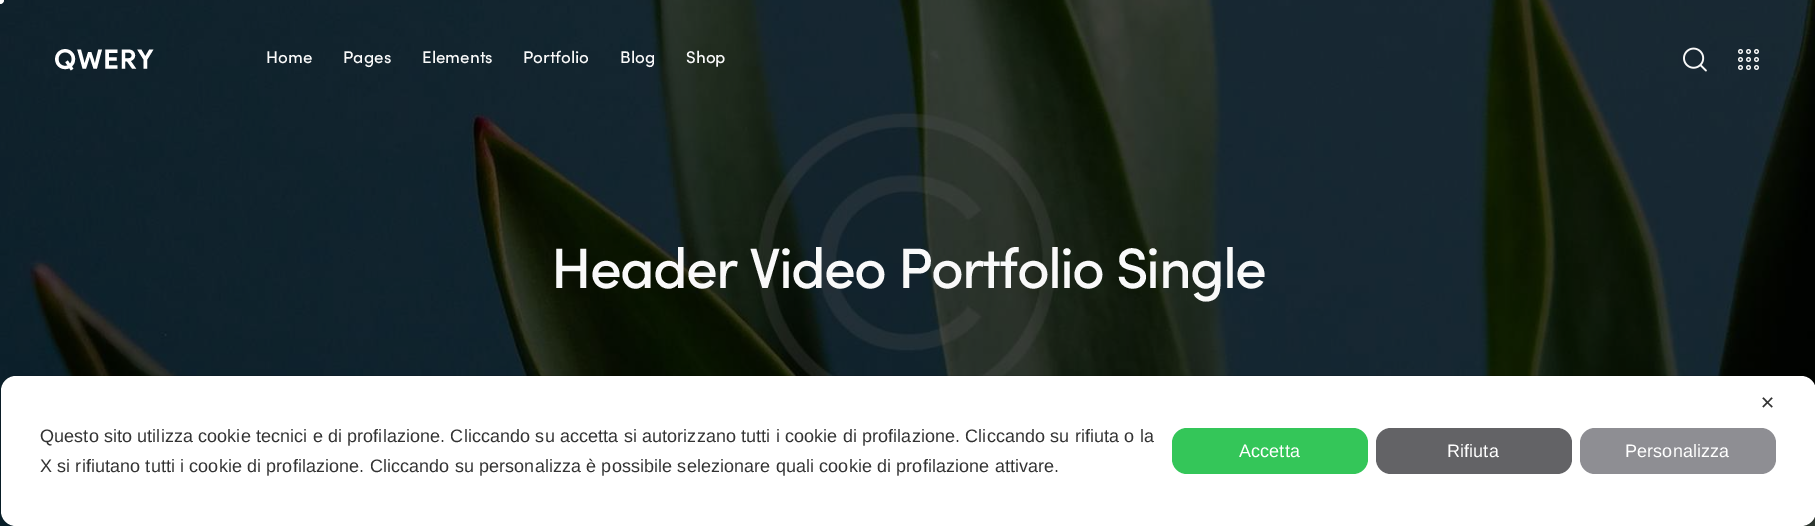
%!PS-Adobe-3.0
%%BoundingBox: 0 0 1815 526
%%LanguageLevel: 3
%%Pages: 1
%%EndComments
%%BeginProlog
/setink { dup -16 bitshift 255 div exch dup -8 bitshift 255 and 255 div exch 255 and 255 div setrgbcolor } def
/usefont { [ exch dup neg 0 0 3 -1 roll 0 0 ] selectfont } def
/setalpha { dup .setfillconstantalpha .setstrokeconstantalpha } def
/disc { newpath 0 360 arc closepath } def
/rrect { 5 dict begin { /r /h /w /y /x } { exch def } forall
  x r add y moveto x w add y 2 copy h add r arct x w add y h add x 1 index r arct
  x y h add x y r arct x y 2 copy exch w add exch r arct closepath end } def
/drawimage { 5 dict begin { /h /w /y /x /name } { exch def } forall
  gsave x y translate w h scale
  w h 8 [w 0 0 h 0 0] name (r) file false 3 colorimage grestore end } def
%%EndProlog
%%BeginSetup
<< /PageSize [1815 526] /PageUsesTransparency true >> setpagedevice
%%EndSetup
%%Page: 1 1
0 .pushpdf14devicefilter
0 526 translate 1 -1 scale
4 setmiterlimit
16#FFFFFF setink
0 0 1815 526 rectfill
(img4.raw) 0 0 1815 526 drawimage
0 0 4 disc fill
(img1.raw) 55 49 99 22 drawimage
/Sofia-Medium 17 usefont
16#F9F9F9 setink
[
    [(Home) 266 63]
    [(Pages) 343 63]
    [(Elements) 422 63]
    [(Portfolio) 523 63]
    [(Blog) 620 63]
    [(Shop) 686 63]
] { aload pop moveto show } forall
(img2.raw) 1683 47 24 25 drawimage
(img3.raw) 1738 49 21 21 drawimage
/Sofia-Medium 57 usefont
551 288 moveto -1.8 0 (Header Video Portfolio Single) ashow
0.08 setalpha
16#000000 setink
0.5 375.5 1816 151 15.5 rrect stroke
1 setalpha
16#FFFFFF setink
1 376 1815 150 15 rrect fill
/DejaVuSans-Regular 18 usefont
16#333333 setink
1760 409 moveto 0.1 0 (✕) ashow
/LiberationSans-Regular 18 usefont
40 442 moveto 0.1 0 (Questo sito utilizza cookie tecnici e di profilazione. Cliccando su accetta si autorizzano tutti i cookie di profilazione. Cliccando su rifiuta o la) ashow
40 472 moveto 0.1 0 (X si rifiutano tutti i cookie di profilazione. Cliccando su personalizza è possibile selezionare quali cookie di profilazione attivare.) ashow
16#34C659 setink
1172 428 196 46 15 rrect fill
16#FFFFFF setink
1239 457 moveto 0.1 0 (Accetta) ashow
16#636366 setink
1376 428 196 46 15 rrect fill
16#FFFFFF setink
1447 457 moveto 0.1 0 (Rifiuta) ashow
16#8E8E93 setink
1580 428 196 46 15 rrect fill
16#FFFFFF setink
1625 457 moveto 0.1 0 (Personalizza) ashow
.poppdf14devicefilter showpage
%%EOF
